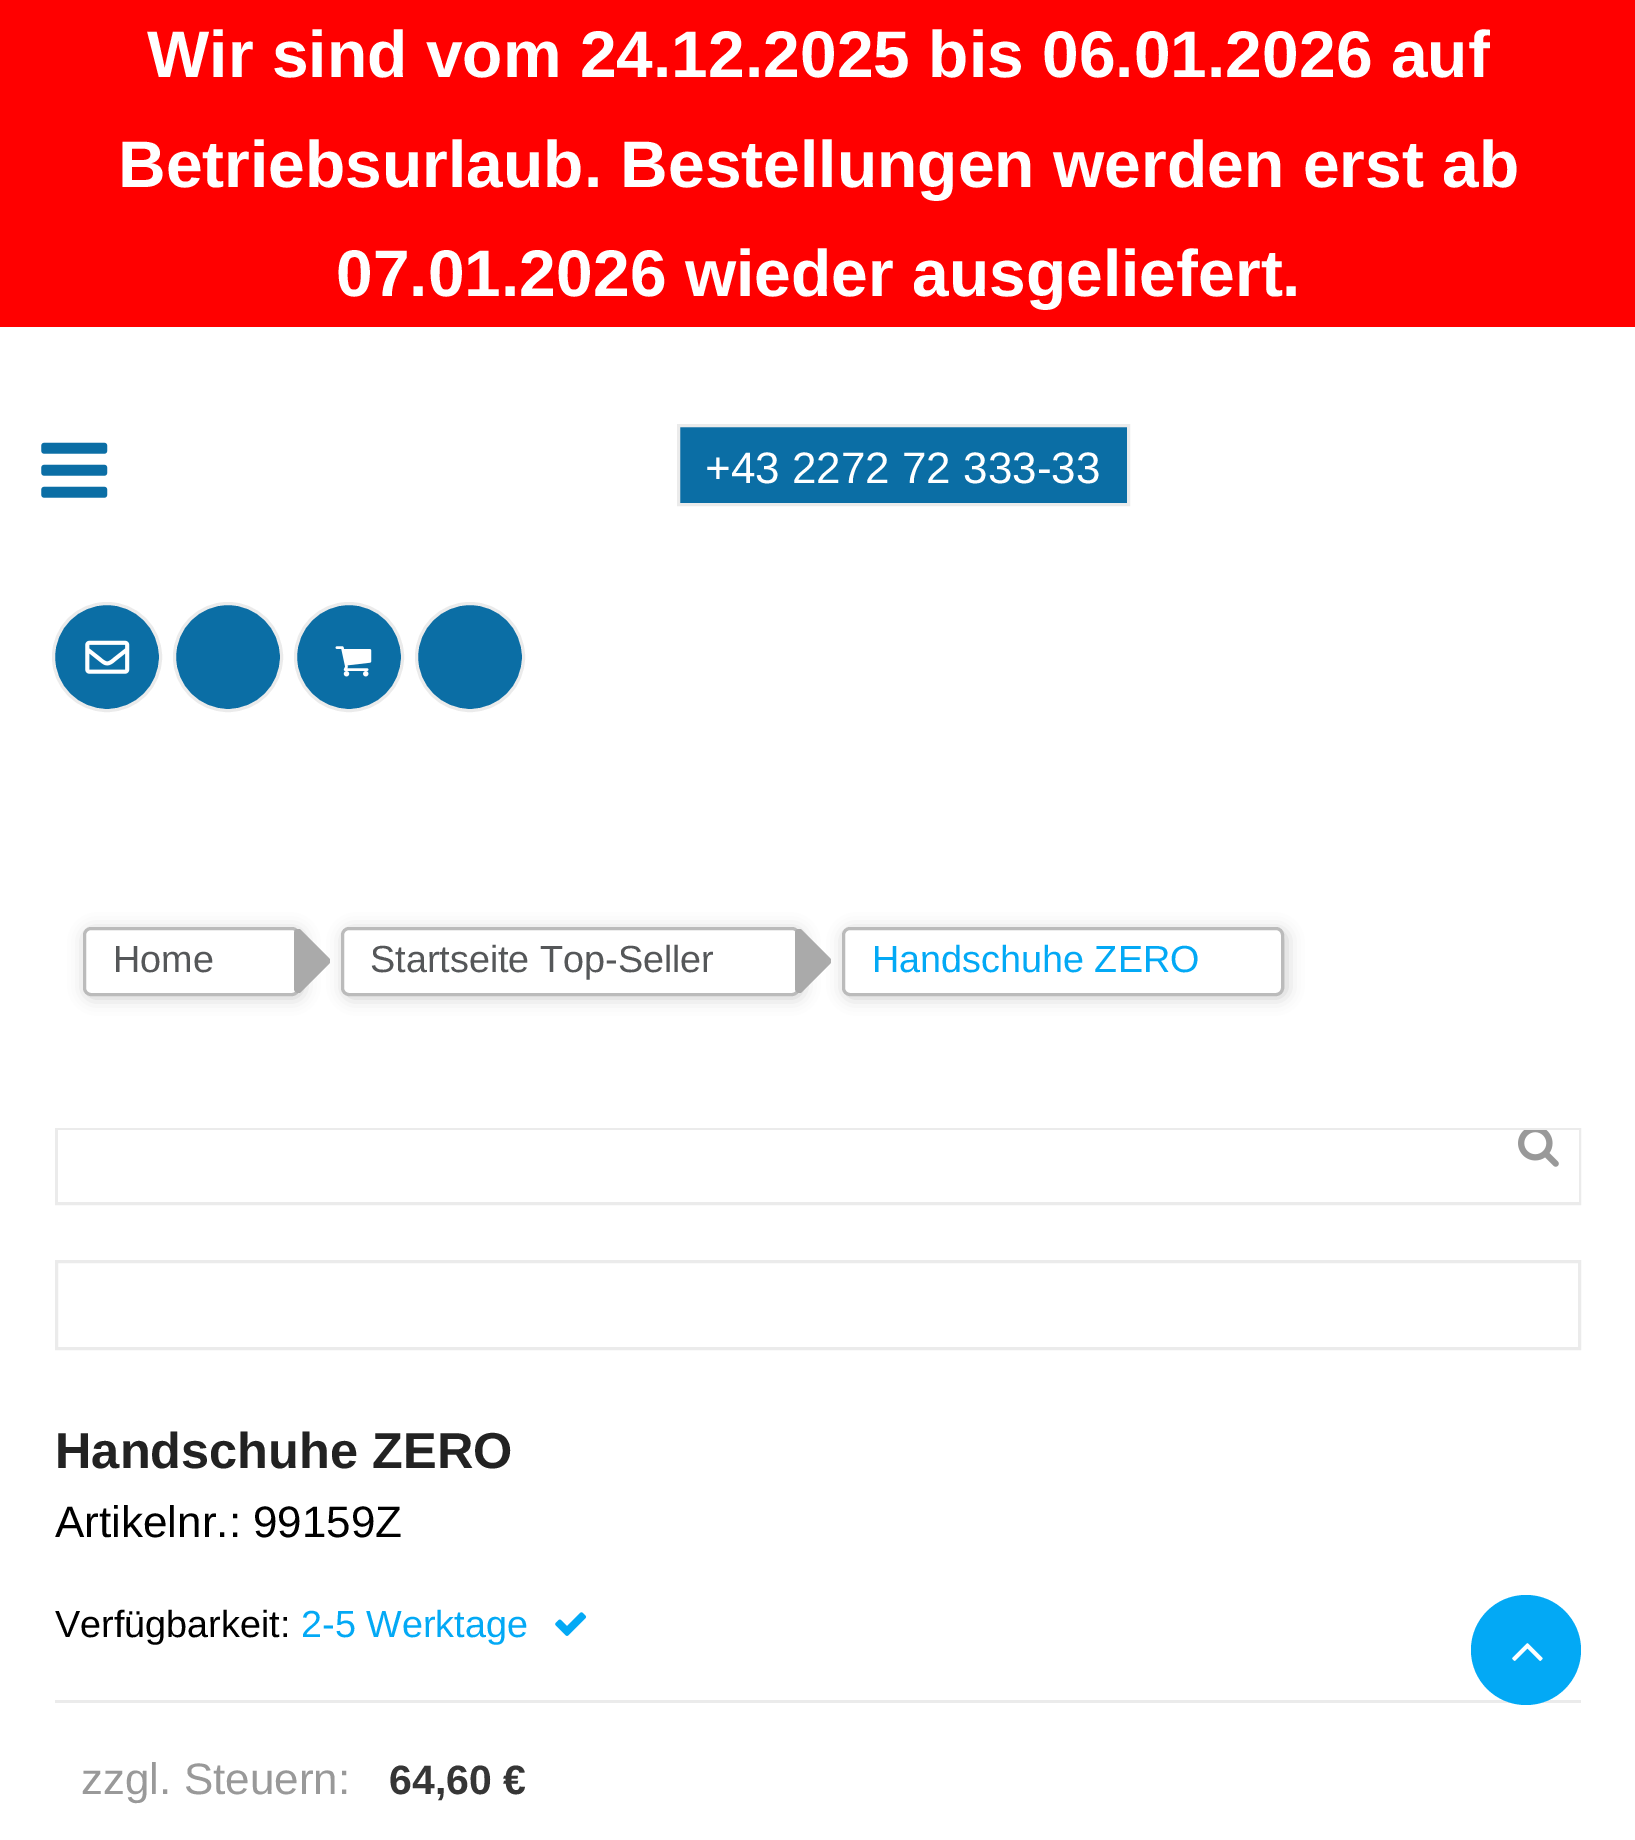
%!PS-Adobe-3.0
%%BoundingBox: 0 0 1635 1840
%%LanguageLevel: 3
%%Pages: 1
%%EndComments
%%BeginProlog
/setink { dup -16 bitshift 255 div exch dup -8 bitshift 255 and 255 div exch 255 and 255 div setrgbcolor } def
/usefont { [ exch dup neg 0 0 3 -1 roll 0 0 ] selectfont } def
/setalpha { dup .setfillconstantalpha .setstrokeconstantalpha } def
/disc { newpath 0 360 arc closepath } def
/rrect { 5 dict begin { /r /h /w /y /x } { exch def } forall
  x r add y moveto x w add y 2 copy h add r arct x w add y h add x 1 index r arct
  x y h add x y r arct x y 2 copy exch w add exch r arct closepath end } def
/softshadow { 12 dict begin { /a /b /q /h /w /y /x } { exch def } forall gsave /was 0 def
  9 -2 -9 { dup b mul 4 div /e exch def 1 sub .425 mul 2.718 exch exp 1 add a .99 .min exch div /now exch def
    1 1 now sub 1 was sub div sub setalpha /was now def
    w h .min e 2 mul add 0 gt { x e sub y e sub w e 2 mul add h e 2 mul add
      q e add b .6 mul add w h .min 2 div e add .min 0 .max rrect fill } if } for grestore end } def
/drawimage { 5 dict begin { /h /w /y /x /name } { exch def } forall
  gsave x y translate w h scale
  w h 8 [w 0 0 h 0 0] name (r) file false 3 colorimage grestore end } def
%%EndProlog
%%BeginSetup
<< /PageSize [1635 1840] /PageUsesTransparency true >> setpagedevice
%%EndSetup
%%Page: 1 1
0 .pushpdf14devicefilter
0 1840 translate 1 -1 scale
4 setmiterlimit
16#FFFFFF setink
0 0 1635 1840 rectfill
16#FF0000 setink
0 0 1635 327 rectfill
/LiberationSans-Bold 66 usefont
16#FFFFFF setink
[
    [(Wir sind vom 24.12.2025 bis 06.01.2026 auf) 147 77]
    [(Betriebsurlaub. Bestellungen werden erst ab) 118 187]
    [(07.01.2026 wieder ausgeliefert.) 336 296]
] { aload pop moveto show } forall
(img1.raw) 41 442 67 56 drawimage
16#0B6EA5 setink
678.5 425.5 moveto 1128.5 425.5 lineto 1128.5 504.5 lineto 678.5 504.5 lineto closepath gsave fill grestore
16#EBEBEB setink
3 setlinewidth
stroke
/LiberationSans-Regular 44 usefont
16#FFFFFF setink
705 483 moveto (+43 2272 72 333-33) show
16#0B6EA5 setink
107 657 53.5 disc gsave fill grestore
16#EBEBEB setink
stroke
(img2.raw) 85 640 45 34 drawimage
16#0B6EA5 setink
228 657 53.5 disc gsave fill grestore
16#EBEBEB setink
stroke
16#0B6EA5 setink
349 657 53.5 disc gsave fill grestore
16#EBEBEB setink
stroke
(img3.raw) 335 646 37 31 drawimage
16#0B6EA5 setink
470 657 53.5 disc gsave fill grestore
16#EBEBEB setink
stroke
gsave
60 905 moveto 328 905 lineto 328 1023 lineto 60 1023 lineto closepath 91 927 moveto 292 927 lineto 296.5 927 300 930.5 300 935 curveto 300 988 lineto 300 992.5 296.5 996 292 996 curveto 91 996 lineto 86.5 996 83 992.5 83 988 curveto 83 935 lineto 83 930.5 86.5 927 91 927 curveto closepath eoclip newpath
16#CCCCCC setink
85 930 218 68 8 8 1 softshadow
grestore
16#BBBBBB setink
84.5 928.5 214 66 6.5 rrect stroke
/LiberationSans-Regular 37.75 usefont
16#555759 setink
113 972 moveto (Home) show
16#AAAAAA setink
330 961 moveto 330 960 330 959 329 958 curveto 301 930 lineto 300 929 299 929 298 929 curveto 296 929 294 930 294 933 curveto 294 989 lineto 294 991 296 993 298 993 curveto 299 993 300 993 301 992 curveto 329 964 lineto 330 963 330 962 330 961 curveto closepath fill
gsave
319 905 moveto 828 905 lineto 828 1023 lineto 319 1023 lineto closepath 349 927 moveto 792 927 lineto 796.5 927 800 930.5 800 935 curveto 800 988 lineto 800 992.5 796.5 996 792 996 curveto 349 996 lineto 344.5 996 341 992.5 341 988 curveto 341 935 lineto 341 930.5 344.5 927 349 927 curveto closepath eoclip newpath
16#CCCCCC setink
344 930 459 68 8 8 1 softshadow
grestore
16#BBBBBB setink
342.5 928.5 456 66 6.5 rrect stroke
16#555759 setink
370 972 moveto (Startseite Top-Seller) show
16#AAAAAA setink
831 961 moveto 831 960 831 959 830 958 curveto 802 930 lineto 801 929 800 929 799 929 curveto 797 929 795 930 795 933 curveto 795 989 lineto 795 991 797 993 799 993 curveto 800 993 801 993 802 992 curveto 830 964 lineto 831 963 831 962 831 961 curveto closepath fill
gsave
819 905 moveto 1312 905 lineto 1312 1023 lineto 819 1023 lineto closepath 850 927 moveto 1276 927 lineto 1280.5 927 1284 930.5 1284 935 curveto 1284 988 lineto 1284 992.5 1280.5 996 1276 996 curveto 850 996 lineto 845.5 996 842 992.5 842 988 curveto 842 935 lineto 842 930.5 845.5 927 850 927 curveto closepath eoclip newpath
16#CCCCCC setink
844 930 443 68 8 8 1 softshadow
grestore
16#BBBBBB setink
843.5 928.5 439 66 6.5 rrect stroke
16#03A9F5 setink
872 972 moveto (Handschuhe ZERO) show
16#EBEBEB setink
56.5 1129.5 1523 74 rectstroke
16#FFFFFF setink
58 1130 1521 72 rectfill
(img4.raw) 1518 1130 41 37 drawimage
16#EBEBEB setink
56.5 1261.5 1523 87 rectstroke
/LiberationSans-Bold 50.5 usefont
16#222222 setink
55 1468 moveto (Handschuhe ZERO) show
/LiberationSans-Regular 44 usefont
16#000000 setink
55 1537 moveto (Artikelnr.: 99159Z) show
16#EBEBEB setink
55 1700 1526 3 rectfill
/LiberationSans-Regular 37.75 usefont
16#000000 setink
55 1637 moveto (Verfügbarkeit:) show
16#03A9F5 setink
301 1637 moveto (2-5 Werktage) show
(img5.raw) 555 1612 32 24 drawimage
/LiberationSans-Regular 44 usefont
16#999999 setink
81 1794 moveto (zzgl. Steuern:) show
/LiberationSans-Bold 41 usefont
16#363636 setink
389 1794 moveto (64,60 €) show
16#03A9F5 setink
1526 1650 55 disc fill
(img6.raw) 1512 1643 31 18 drawimage
.poppdf14devicefilter showpage
%%EOF
